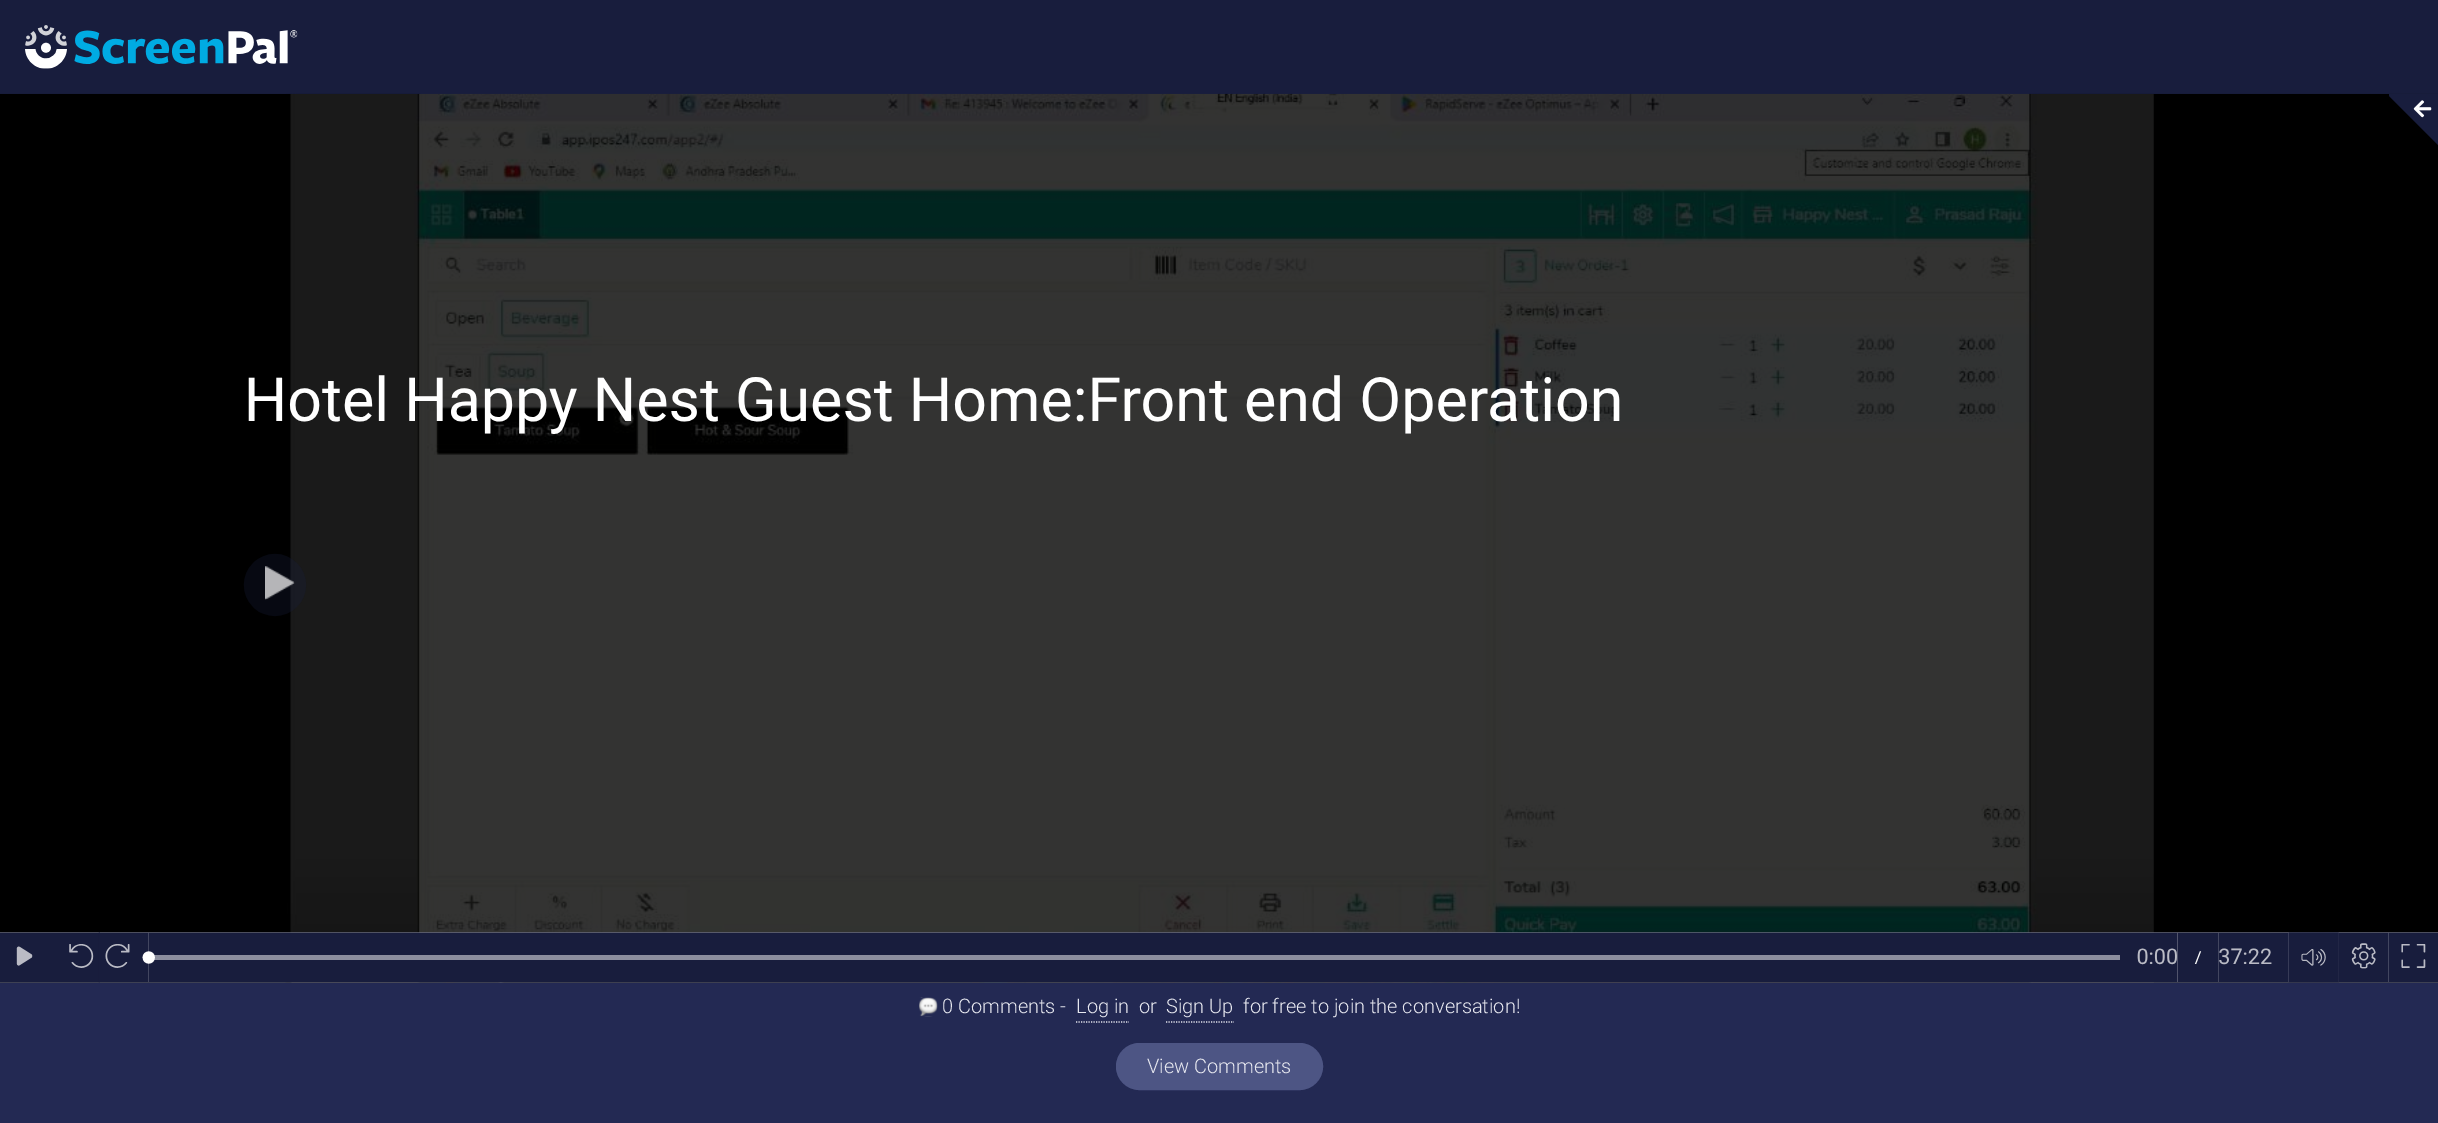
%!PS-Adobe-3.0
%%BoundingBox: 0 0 2438 1123
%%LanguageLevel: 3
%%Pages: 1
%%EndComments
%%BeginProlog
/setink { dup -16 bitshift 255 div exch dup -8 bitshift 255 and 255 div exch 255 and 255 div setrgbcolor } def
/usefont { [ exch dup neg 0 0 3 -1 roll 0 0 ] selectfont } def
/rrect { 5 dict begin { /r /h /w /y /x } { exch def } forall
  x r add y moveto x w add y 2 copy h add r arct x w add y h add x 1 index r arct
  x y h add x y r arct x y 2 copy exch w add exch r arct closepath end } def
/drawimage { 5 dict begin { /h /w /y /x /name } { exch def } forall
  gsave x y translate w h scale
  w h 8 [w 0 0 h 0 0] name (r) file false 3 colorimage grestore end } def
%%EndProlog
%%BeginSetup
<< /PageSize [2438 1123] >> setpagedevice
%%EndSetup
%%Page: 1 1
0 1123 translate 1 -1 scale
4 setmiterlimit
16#232953 setink
0 0 2438 1123 rectfill
16#181D3D setink
0 0 2438 94 rectfill
(img1.raw) 25 25 273 44 drawimage
(img2.raw) 0 93 2438 890 drawimage
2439 94 moveto 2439 146 lineto 2389 96 lineto 2389 94 lineto closepath fill
(img3.raw) 2413 100 19 18 drawimage
(img4.raw) 919 997 19 20 drawimage
/Roboto-Light 20 usefont
16#E6E7EF setink
942 1013 moveto (0 Comments -) show
1.2 setlinewidth
[1.25 1.25] 0 setdash
1076 1022 moveto 1129 1022 lineto stroke
1076 1013 moveto (Log in) show
1139 1013 moveto (or) show
1166 1022 moveto 1234 1022 lineto stroke
1166 1013 moveto (Sign Up) show
1243 1013 moveto (for free to join the conversation!) show
16#4D5584 setink
1116.5 1043.5 206 46 23 rrect gsave fill grestore
1 setlinewidth
[] 0 setdash
stroke
16#E6E7EF setink
1147 1073 moveto (View Comments) show
showpage
%%EOF
